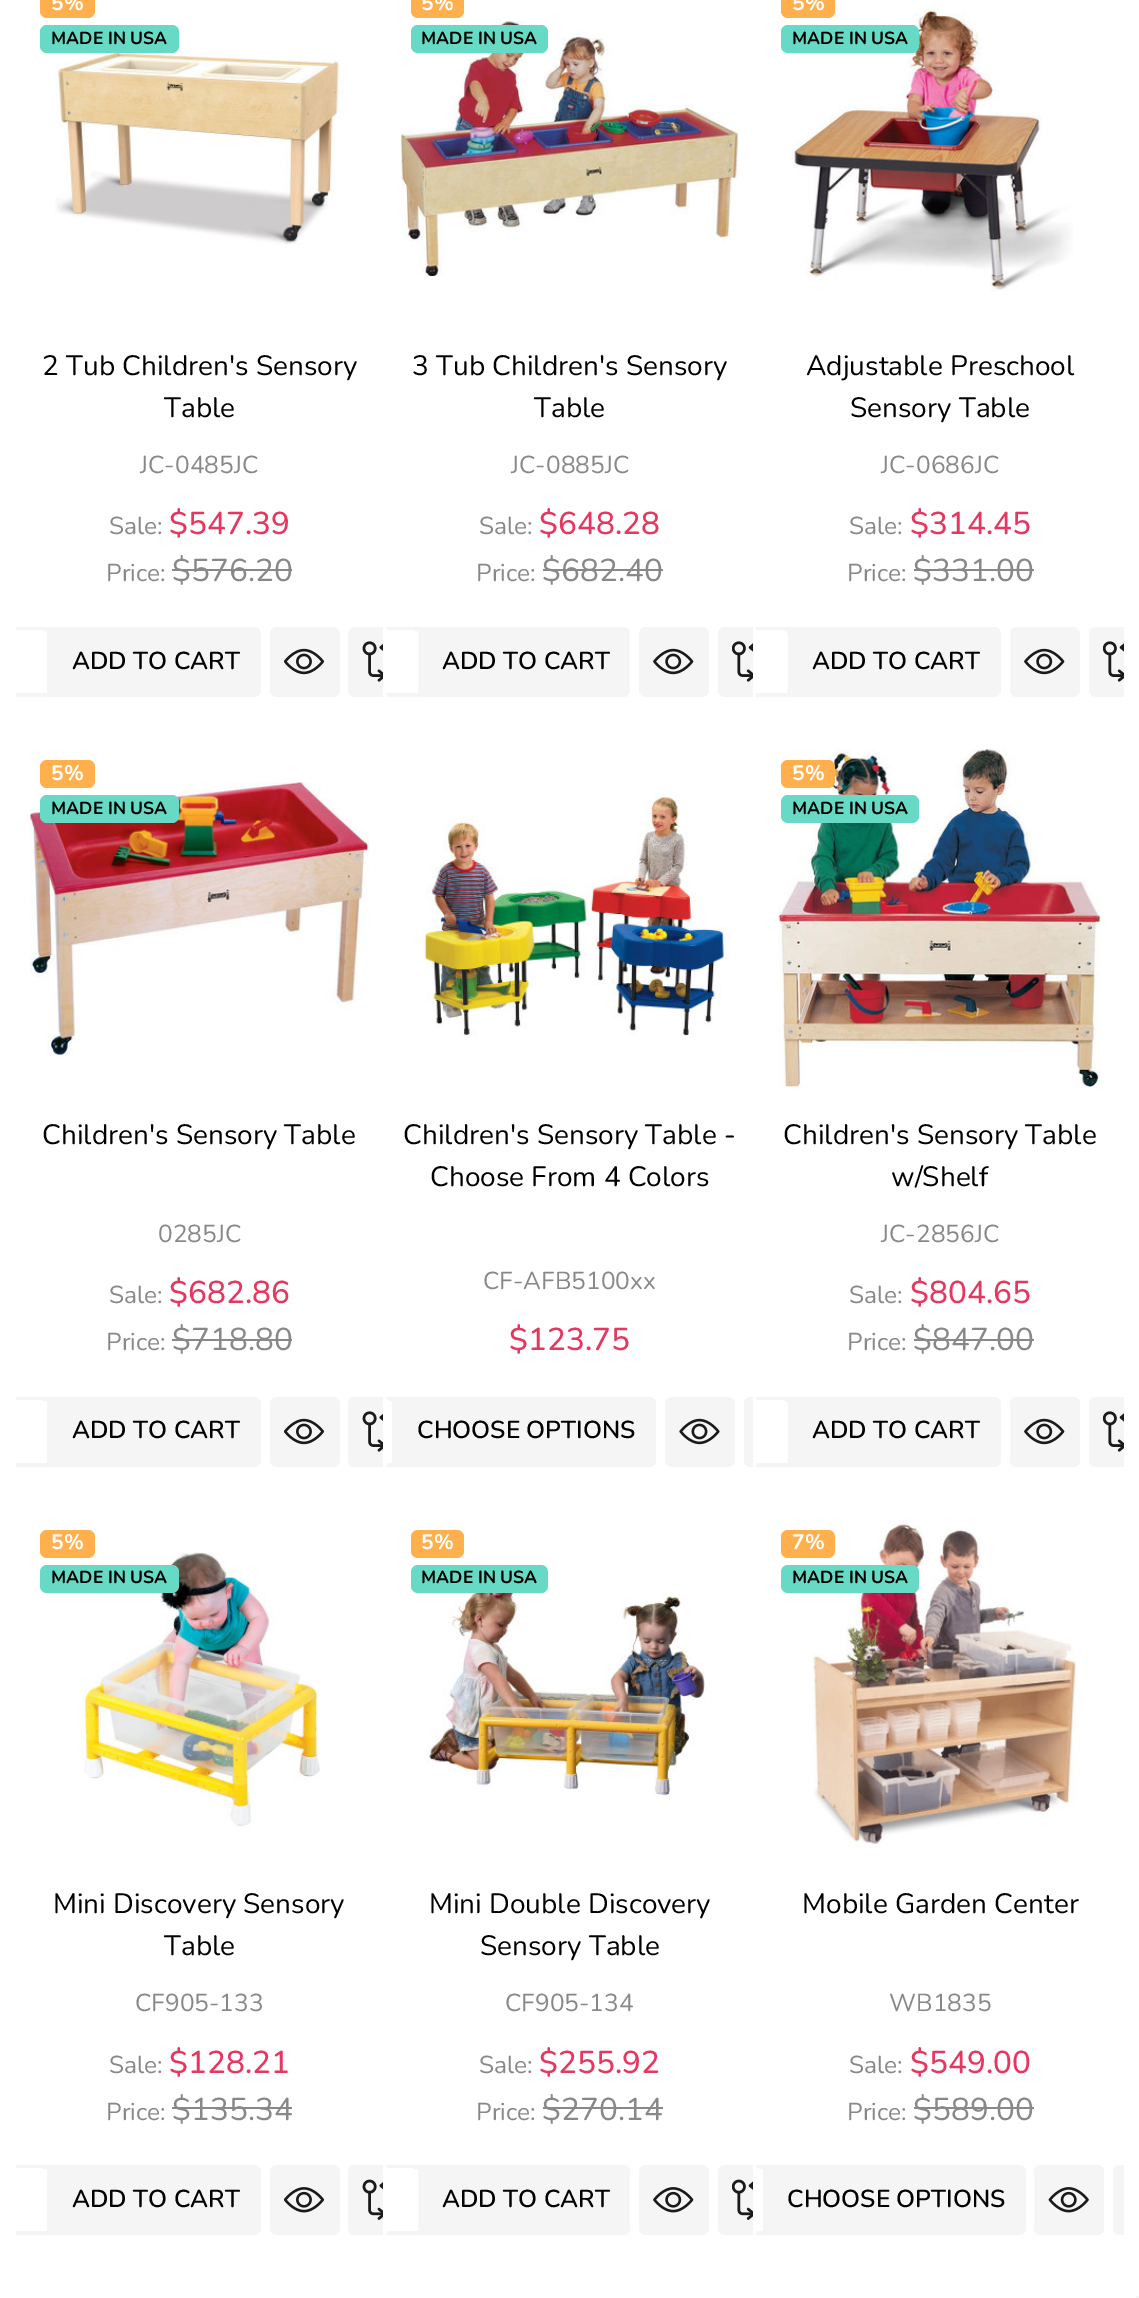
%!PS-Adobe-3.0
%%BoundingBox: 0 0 1139 2298
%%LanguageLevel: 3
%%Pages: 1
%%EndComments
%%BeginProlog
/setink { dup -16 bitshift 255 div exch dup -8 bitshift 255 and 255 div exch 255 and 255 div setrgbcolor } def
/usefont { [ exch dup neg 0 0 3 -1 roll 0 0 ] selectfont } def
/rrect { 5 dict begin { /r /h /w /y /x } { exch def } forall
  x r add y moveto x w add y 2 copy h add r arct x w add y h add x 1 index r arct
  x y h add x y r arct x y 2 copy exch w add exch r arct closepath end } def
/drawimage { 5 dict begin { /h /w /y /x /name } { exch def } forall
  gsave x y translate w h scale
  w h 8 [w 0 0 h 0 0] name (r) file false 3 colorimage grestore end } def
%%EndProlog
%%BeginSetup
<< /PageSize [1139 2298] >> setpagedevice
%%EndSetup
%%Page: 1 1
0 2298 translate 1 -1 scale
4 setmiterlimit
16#FFFFFF setink
0 0 1139 2298 rectfill
16#FFAF4C setink
40 -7 55 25 7 rrect fill
/Nunito-Bold 21 usefont
16#FFFFFF setink
51 10 moveto (5%) show
(img1.raw) 55 51 289 194 drawimage
16#67DAC5 setink
40 25 139 28 7 rrect fill
/Nunito-Bold 17.5 usefont
16#000000 setink
51 44 moveto (MADE IN USA) show
/Nunito-Regular 28 usefont
42 375 moveto (2 Tub Children's Sensory) show
164 417 moveto (Table) show
/Nunito-Regular 24.5 usefont
16#888888 setink
140 473 moveto (JC-0485JC) show
109 534 moveto (Sale:) show
/Nunito-Medium 31.5 usefont
16#E5375F setink
169 534 moveto ($547.39) show
/Nunito-Regular 24.5 usefont
16#888888 setink
106 581 moveto (Price:) show
/Nunito-Regular 31.5 usefont
172 581 moveto ($576.20) show
172 569 120 2 rectfill
gsave
16 0 367 711 rectclip
16#F5F5F5 setink
4 setlinewidth
-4 629 moveto 49 629 lineto 49 695 lineto -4 695 lineto -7 695 -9 693 -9 690 curveto -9 634 lineto -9 631 -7 629 -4 629 curveto closepath stroke
grestore
16#FFFFFF setink
16 630 moveto 40 630 lineto 44 630 47 633 47 637 curveto 47 686 lineto 47 690 44 693 40 693 curveto 16 693 lineto closepath fill
16#F5F5F5 setink
51 627 moveto 254 627 lineto 258 627 261 630 261 634 curveto 261 690 lineto 261 694 258 697 254 697 curveto 51 697 lineto closepath fill
/Nunito-SemiBold 24.5 usefont
16#000000 setink
72 669 moveto (ADD TO CART) show
16#F5F5F5 setink
270 627 70 70 7 rrect fill
(img2.raw) 284 648 41 27 drawimage
355 627 moveto 383 627 lineto 383 697 lineto 355 697 lineto 351 697 348 694 348 690 curveto 348 634 lineto 348 630 351 627 355 627 curveto closepath fill
(img3.raw) 362 641 21 41 drawimage
16#FFAF4C setink
411 -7 53 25 7 rrect fill
/Nunito-Bold 21 usefont
16#FFFFFF setink
421 10 moveto (5%) show
(img4.raw) 400 21 339 255 drawimage
16#67DAC5 setink
411 25 137 28 7 rrect fill
/Nunito-Bold 17.5 usefont
16#000000 setink
421 44 moveto (MADE IN USA) show
/Nunito-Regular 28 usefont
412 375 moveto (3 Tub Children's Sensory) show
534 417 moveto (Table) show
/Nunito-Regular 24.5 usefont
16#888888 setink
511 473 moveto (JC-0885JC) show
479 534 moveto (Sale:) show
/Nunito-Medium 31.5 usefont
16#E5375F setink
539 534 moveto ($648.28) show
/Nunito-Regular 24.5 usefont
16#888888 setink
476 581 moveto (Price:) show
/Nunito-Regular 31.5 usefont
542 581 moveto ($682.40) show
543 569 120 2 rectfill
gsave
387 0 366 711 rectclip
16#F5F5F5 setink
4 setlinewidth
359 629 moveto 420 629 lineto 420 695 lineto 359 695 lineto 356 695 354 693 354 690 curveto 354 634 lineto 354 631 356 629 359 629 curveto closepath stroke
grestore
16#FFFFFF setink
387 630 moveto 411 630 lineto 415 630 418 633 418 637 curveto 418 686 lineto 418 690 415 693 411 693 curveto 387 693 lineto closepath fill
16#F5F5F5 setink
422 627 moveto 623 627 lineto 627 627 630 630 630 634 curveto 630 690 lineto 630 694 627 697 623 697 curveto 422 697 lineto closepath fill
/Nunito-SemiBold 24.5 usefont
16#000000 setink
442 669 moveto (ADD TO CART) show
16#F5F5F5 setink
639 627 70 70 7 rrect fill
(img5.raw) 653 648 41 27 drawimage
725 627 moveto 753 627 lineto 753 697 lineto 725 697 lineto 721 697 718 694 718 690 curveto 718 634 lineto 718 630 721 627 725 627 curveto closepath fill
(img6.raw) 732 641 21 41 drawimage
(img7.raw) 790 6 283 286 drawimage
16#FFAF4C setink
781 -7 54 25 7 rrect fill
/Nunito-Bold 21 usefont
16#FFFFFF setink
792 10 moveto (5%) show
16#67DAC5 setink
781 25 138 28 7 rrect fill
/Nunito-Bold 17.5 usefont
16#000000 setink
792 44 moveto (MADE IN USA) show
/Nunito-Regular 28 usefont
806 375 moveto (Adjustable Preschool) show
850 417 moveto (Sensory Table) show
/Nunito-Regular 24.5 usefont
16#888888 setink
881 473 moveto (JC-0686JC) show
849 534 moveto (Sale:) show
/Nunito-Medium 31.5 usefont
16#E5375F setink
910 534 moveto ($314.45) show
/Nunito-Regular 24.5 usefont
16#888888 setink
847 581 moveto (Price:) show
/Nunito-Regular 31.5 usefont
913 581 moveto ($331.00) show
914 569 120 2 rectfill
gsave
756 0 368 711 rectclip
16#F5F5F5 setink
4 setlinewidth
728 629 moveto 789 629 lineto 789 695 lineto 728 695 lineto 725 695 723 693 723 690 curveto 723 634 lineto 723 631 725 629 728 629 curveto closepath stroke
grestore
16#FFFFFF setink
756 630 moveto 781 630 lineto 785 630 788 633 788 637 curveto 788 686 lineto 788 690 785 693 781 693 curveto 756 693 lineto closepath fill
16#F5F5F5 setink
791 627 moveto 994 627 lineto 998 627 1001 630 1001 634 curveto 1001 690 lineto 1001 694 998 697 994 697 curveto 791 697 lineto closepath fill
/Nunito-SemiBold 24.5 usefont
16#000000 setink
812 669 moveto (ADD TO CART) show
16#F5F5F5 setink
1010 627 70 70 7 rrect fill
(img5.raw) 1024 648 41 27 drawimage
1096 627 moveto 1124 627 lineto 1124 697 lineto 1096 697 lineto 1092 697 1089 694 1089 690 curveto 1089 634 lineto 1089 630 1092 627 1096 627 curveto closepath fill
(img6.raw) 1103 641 21 41 drawimage
(img8.raw) 30 782 339 273 drawimage
16#FFAF4C setink
40 760 55 28 7 rrect fill
/Nunito-Bold 21 usefont
16#FFFFFF setink
51 780 moveto (5%) show
16#67DAC5 setink
40 795 139 28 7 rrect fill
/Nunito-Bold 17.5 usefont
16#000000 setink
51 814 moveto (MADE IN USA) show
/Nunito-Regular 28 usefont
42 1144 moveto (Children's Sensory Table) show
/Nunito-Regular 24.5 usefont
16#888888 setink
158 1242 moveto (0285JC) show
109 1303 moveto (Sale:) show
/Nunito-Medium 31.5 usefont
16#E5375F setink
169 1303 moveto ($682.86) show
/Nunito-Regular 24.5 usefont
16#888888 setink
106 1350 moveto (Price:) show
/Nunito-Regular 31.5 usefont
172 1350 moveto ($718.80) show
172 1339 120 2 rectfill
gsave
16 735 367 746 rectclip
16#F5F5F5 setink
4 setlinewidth
-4 1399 moveto 49 1399 lineto 49 1465 lineto -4 1465 lineto -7 1465 -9 1463 -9 1460 curveto -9 1404 lineto -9 1401 -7 1399 -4 1399 curveto closepath stroke
grestore
16#FFFFFF setink
16 1400 moveto 40 1400 lineto 44 1400 47 1403 47 1407 curveto 47 1456 lineto 47 1460 44 1463 40 1463 curveto 16 1463 lineto closepath fill
16#F5F5F5 setink
51 1397 moveto 254 1397 lineto 258 1397 261 1400 261 1404 curveto 261 1460 lineto 261 1464 258 1467 254 1467 curveto 51 1467 lineto closepath fill
/Nunito-SemiBold 24.5 usefont
16#000000 setink
72 1438 moveto (ADD TO CART) show
16#F5F5F5 setink
270 1397 70 70 7 rrect fill
(img2.raw) 284 1418 41 27 drawimage
355 1397 moveto 383 1397 lineto 383 1467 lineto 355 1467 lineto 351 1467 348 1464 348 1460 curveto 348 1404 lineto 348 1400 351 1397 355 1397 curveto closepath fill
(img3.raw) 362 1411 21 41 drawimage
(img9.raw) 421 791 309 246 drawimage
/Nunito-Regular 28 usefont
16#000000 setink
403 1144 moveto (Children's Sensory Table -) show
430 1186 moveto (Choose From 4 Colors) show
/Nunito-Regular 24.5 usefont
16#888888 setink
483 1289 moveto (CF-AFB5100xx) show
/Nunito-Medium 31.5 usefont
16#E5375F setink
509 1350 moveto ($123.75) show
gsave
387 735 366 746 rectclip
16#F5F5F5 setink
4 setlinewidth
333 1399 moveto 394 1399 lineto 394 1465 lineto 333 1465 lineto 330 1465 328 1463 328 1460 curveto 328 1404 lineto 328 1401 330 1399 333 1399 curveto closepath stroke
grestore
gsave
329 1400 63 63 7 rrect clip newpath
16#FFFFFF setink
387 1400 5 63 rectfill
grestore
16#F5F5F5 setink
396 1397 moveto 649 1397 lineto 653 1397 656 1400 656 1404 curveto 656 1460 lineto 656 1464 653 1467 649 1467 curveto 396 1467 lineto closepath fill
/Nunito-SemiBold 24.5 usefont
16#000000 setink
417 1438 moveto (CHOOSE OPTIONS) show
16#F5F5F5 setink
665 1397 70 70 7 rrect fill
(img10.raw) 679 1418 41 27 drawimage
751 1397 moveto 753 1397 lineto 753 1467 lineto 751 1467 lineto 747 1467 744 1464 744 1460 curveto 744 1404 lineto 744 1400 747 1397 751 1397 curveto closepath fill
(img11.raw) 778 748 323 340 drawimage
16#FFAF4C setink
781 760 54 28 7 rrect fill
/Nunito-Bold 21 usefont
16#FFFFFF setink
792 780 moveto (5%) show
16#67DAC5 setink
781 795 138 28 7 rrect fill
/Nunito-Bold 17.5 usefont
16#000000 setink
792 814 moveto (MADE IN USA) show
/Nunito-Regular 28 usefont
783 1144 moveto (Children's Sensory Table) show
891 1186 moveto (w/Shelf) show
/Nunito-Regular 24.5 usefont
16#888888 setink
881 1242 moveto (JC-2856JC) show
849 1303 moveto (Sale:) show
/Nunito-Medium 31.5 usefont
16#E5375F setink
910 1303 moveto ($804.65) show
/Nunito-Regular 24.5 usefont
16#888888 setink
847 1350 moveto (Price:) show
/Nunito-Regular 31.5 usefont
913 1350 moveto ($847.00) show
914 1339 120 2 rectfill
gsave
756 735 368 746 rectclip
16#F5F5F5 setink
4 setlinewidth
728 1399 moveto 789 1399 lineto 789 1465 lineto 728 1465 lineto 725 1465 723 1463 723 1460 curveto 723 1404 lineto 723 1401 725 1399 728 1399 curveto closepath stroke
grestore
16#FFFFFF setink
756 1400 moveto 781 1400 lineto 785 1400 788 1403 788 1407 curveto 788 1456 lineto 788 1460 785 1463 781 1463 curveto 756 1463 lineto closepath fill
16#F5F5F5 setink
791 1397 moveto 994 1397 lineto 998 1397 1001 1400 1001 1404 curveto 1001 1460 lineto 1001 1464 998 1467 994 1467 curveto 791 1467 lineto closepath fill
/Nunito-SemiBold 24.5 usefont
16#000000 setink
812 1438 moveto (ADD TO CART) show
16#F5F5F5 setink
1010 1397 70 70 7 rrect fill
(img5.raw) 1024 1418 41 27 drawimage
1096 1397 moveto 1124 1397 lineto 1124 1467 lineto 1096 1467 lineto 1092 1467 1089 1464 1089 1460 curveto 1089 1404 lineto 1089 1400 1092 1397 1096 1397 curveto closepath fill
(img6.raw) 1103 1411 21 41 drawimage
(img12.raw) 81 1552 239 277 drawimage
16#FFAF4C setink
40 1530 55 28 7 rrect fill
/Nunito-Bold 21 usefont
16#FFFFFF setink
51 1549 moveto (5%) show
16#67DAC5 setink
40 1565 139 28 7 rrect fill
/Nunito-Bold 17.5 usefont
16#000000 setink
51 1583 moveto (MADE IN USA) show
/Nunito-Regular 28 usefont
53 1913 moveto (Mini Discovery Sensory) show
164 1955 moveto (Table) show
/Nunito-Regular 24.5 usefont
16#888888 setink
135 2011 moveto (CF905-133) show
109 2073 moveto (Sale:) show
/Nunito-Medium 31.5 usefont
16#E5375F setink
169 2073 moveto ($128.21) show
/Nunito-Regular 24.5 usefont
16#888888 setink
106 2120 moveto (Price:) show
/Nunito-Regular 31.5 usefont
172 2120 moveto ($135.34) show
172 2107 120 2 rectfill
gsave
16 1505 367 744 rectclip
16#F5F5F5 setink
4 setlinewidth
-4 2167 moveto 49 2167 lineto 49 2233 lineto -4 2233 lineto -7 2233 -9 2231 -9 2228 curveto -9 2172 lineto -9 2169 -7 2167 -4 2167 curveto closepath stroke
grestore
16#FFFFFF setink
16 2168 moveto 40 2168 lineto 44 2168 47 2171 47 2175 curveto 47 2224 lineto 47 2228 44 2231 40 2231 curveto 16 2231 lineto closepath fill
16#F5F5F5 setink
51 2165 moveto 254 2165 lineto 258 2165 261 2168 261 2172 curveto 261 2228 lineto 261 2232 258 2235 254 2235 curveto 51 2235 lineto closepath fill
/Nunito-SemiBold 24.5 usefont
16#000000 setink
72 2207 moveto (ADD TO CART) show
16#F5F5F5 setink
270 2165 70 70 7 rrect fill
(img13.raw) 284 2187 41 26 drawimage
355 2165 moveto 383 2165 lineto 383 2235 lineto 355 2235 lineto 351 2235 348 2232 348 2228 curveto 348 2172 lineto 348 2168 351 2165 355 2165 curveto closepath fill
(img14.raw) 362 2179 21 41 drawimage
16#FFAF4C setink
411 1530 53 28 7 rrect fill
/Nunito-Bold 21 usefont
16#FFFFFF setink
421 1549 moveto (5%) show
(img15.raw) 426 1569 279 228 drawimage
16#67DAC5 setink
411 1565 137 28 7 rrect fill
/Nunito-Bold 17.5 usefont
16#000000 setink
421 1583 moveto (MADE IN USA) show
/Nunito-Regular 28 usefont
429 1913 moveto (Mini Double Discovery) show
480 1955 moveto (Sensory Table) show
/Nunito-Regular 24.5 usefont
16#888888 setink
505 2011 moveto (CF905-134) show
479 2073 moveto (Sale:) show
/Nunito-Medium 31.5 usefont
16#E5375F setink
539 2073 moveto ($255.92) show
/Nunito-Regular 24.5 usefont
16#888888 setink
476 2120 moveto (Price:) show
/Nunito-Regular 31.5 usefont
542 2120 moveto ($270.14) show
543 2107 120 2 rectfill
gsave
387 1505 366 744 rectclip
16#F5F5F5 setink
4 setlinewidth
359 2167 moveto 420 2167 lineto 420 2233 lineto 359 2233 lineto 356 2233 354 2231 354 2228 curveto 354 2172 lineto 354 2169 356 2167 359 2167 curveto closepath stroke
grestore
16#FFFFFF setink
387 2168 moveto 411 2168 lineto 415 2168 418 2171 418 2175 curveto 418 2224 lineto 418 2228 415 2231 411 2231 curveto 387 2231 lineto closepath fill
16#F5F5F5 setink
422 2165 moveto 623 2165 lineto 627 2165 630 2168 630 2172 curveto 630 2228 lineto 630 2232 627 2235 623 2235 curveto 422 2235 lineto closepath fill
/Nunito-SemiBold 24.5 usefont
16#000000 setink
442 2207 moveto (ADD TO CART) show
16#F5F5F5 setink
639 2165 70 70 7 rrect fill
(img16.raw) 653 2187 41 26 drawimage
725 2165 moveto 753 2165 lineto 753 2235 lineto 725 2235 lineto 721 2235 718 2232 718 2228 curveto 718 2172 lineto 718 2168 721 2165 725 2165 curveto closepath fill
(img17.raw) 732 2179 21 41 drawimage
(img18.raw) 811 1519 265 329 drawimage
16#FFAF4C setink
781 1530 54 28 7 rrect fill
/Nunito-Bold 21 usefont
16#FFFFFF setink
792 1549 moveto (7%) show
16#67DAC5 setink
781 1565 138 28 7 rrect fill
/Nunito-Bold 17.5 usefont
16#000000 setink
792 1583 moveto (MADE IN USA) show
/Nunito-Regular 28 usefont
802 1913 moveto (Mobile Garden Center) show
/Nunito-Regular 24.5 usefont
16#888888 setink
889 2011 moveto (WB1835) show
849 2073 moveto (Sale:) show
/Nunito-Medium 31.5 usefont
16#E5375F setink
910 2073 moveto ($549.00) show
/Nunito-Regular 24.5 usefont
16#888888 setink
847 2120 moveto (Price:) show
/Nunito-Regular 31.5 usefont
913 2120 moveto ($589.00) show
914 2107 120 2 rectfill
gsave
756 1505 368 744 rectclip
16#F5F5F5 setink
4 setlinewidth
704 2167 moveto 765 2167 lineto 765 2233 lineto 704 2233 lineto 701 2233 699 2231 699 2228 curveto 699 2172 lineto 699 2169 701 2167 704 2167 curveto closepath stroke
grestore
16#FFFFFF setink
756 2168 moveto 760 2168 763 2171 763 2175 curveto 763 2224 lineto 763 2228 760 2231 756 2231 curveto closepath fill
16#F5F5F5 setink
767 2165 moveto 1019 2165 lineto 1023 2165 1026 2168 1026 2172 curveto 1026 2228 lineto 1026 2232 1023 2235 1019 2235 curveto 767 2235 lineto closepath fill
/Nunito-SemiBold 24.5 usefont
16#000000 setink
787 2207 moveto (CHOOSE OPTIONS) show
16#F5F5F5 setink
1034 2165 70 70 7 rrect fill
(img19.raw) 1048 2187 41 26 drawimage
1120 2165 moveto 1124 2165 lineto 1124 2235 lineto 1120 2235 lineto 1116 2235 1113 2232 1113 2228 curveto 1113 2172 lineto 1113 2168 1116 2165 1120 2165 curveto closepath fill
1136 2296 3 2 rectfill
showpage
%%EOF
